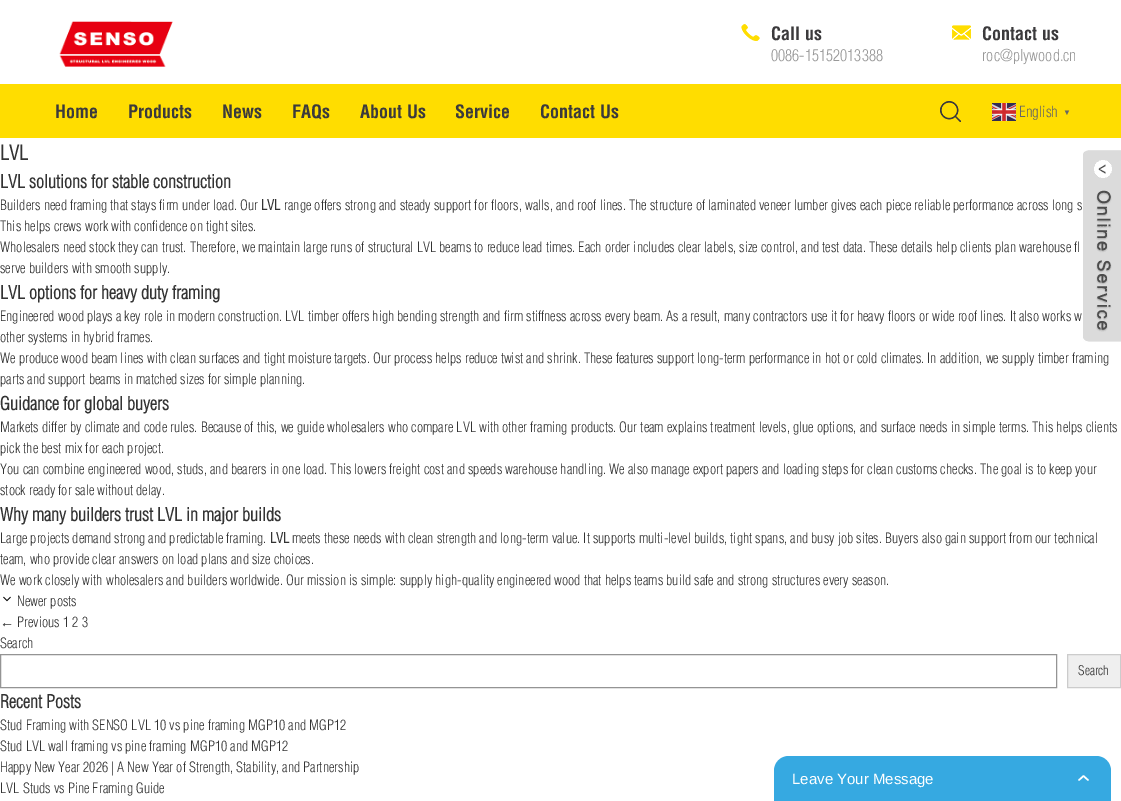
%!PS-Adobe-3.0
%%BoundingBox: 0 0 1121 801
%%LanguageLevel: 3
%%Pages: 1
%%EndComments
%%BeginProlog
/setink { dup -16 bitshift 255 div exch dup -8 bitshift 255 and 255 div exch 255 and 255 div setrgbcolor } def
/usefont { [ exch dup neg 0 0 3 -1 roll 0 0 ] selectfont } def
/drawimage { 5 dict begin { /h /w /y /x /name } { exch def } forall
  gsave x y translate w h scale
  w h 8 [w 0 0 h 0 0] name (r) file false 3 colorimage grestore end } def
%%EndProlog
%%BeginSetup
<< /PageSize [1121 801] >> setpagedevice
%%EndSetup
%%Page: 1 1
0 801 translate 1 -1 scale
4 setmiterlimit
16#FFFFFF setink
0 0 1121 801 rectfill
(img1.raw) 59 21 114 46 drawimage
(img2.raw) 741 24 19 17 drawimage
/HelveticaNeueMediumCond-Bold 18 usefont
16#3B3A3C setink
771 40 moveto (Call us) show
/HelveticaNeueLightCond-Light 16 usefont
16#999999 setink
771 61 moveto (0086-15152013388) show
(img3.raw) 952 25 19 15 drawimage
/HelveticaNeueMediumCond-Bold 18 usefont
16#3B3A3C setink
982 40 moveto (Contact us) show
/HelveticaNeueLightCond-Light 16 usefont
16#999999 setink
982 61 moveto (roc@plywood.cn) show
16#FFDD00 setink
0 84 1121 54 rectfill
/HelveticaNeueMediumCond-Bold 18 usefont
16#3B3A3C setink
[
    [(Home) 55 118]
    [(Products) 128 118]
    [(News) 222 118]
    [(FAQs) 292 118]
    [(About Us) 360 118]
    [(Service) 455 118]
    [(Contact Us) 540 118]
] { aload pop moveto show } forall
(img4.raw) 940 101 21 21 drawimage
(img5.raw) 992 103 24 18 drawimage
/HelveticaNeueLightCond-Light 15 usefont
16#666666 setink
1019 117 moveto (English) show
/LiberationSans-Bold 8 usefont
1063 115 moveto (▼) show
/HelveticaNeueLightCond-Bold 20 usefont
16#333333 setink
0 160 moveto (LVL) show
/HelveticaNeueLightCond-Bold 18 usefont
0 188 moveto (LVL solutions for stable construction) show
/HelveticaNeueLightCond-Light 14 usefont
0 210 moveto (Builders need framing that stays firm under load. Our) show
/HelveticaNeueLightCond-Bold 14 usefont
261 210 moveto (LVL) show
/HelveticaNeueLightCond-Light 14 usefont
[
    [(range offers strong and steady support for floors, walls, and roof lines. The structure of laminated veneer lumber gives each piece reliable performance across long s) 284 210]
    [(This helps crews work with confidence on tight sites.) 0 231]
    [(Wholesalers need stock they can trust. Therefore, we maintain large runs of structural LVL beams to reduce lead times. Each order includes clear labels, size control, and test data. These details help clients plan warehouse fl) 0 252]
    [(serve builders with smooth supply.) 0 273]
] { aload pop moveto show } forall
/HelveticaNeueLightCond-Bold 18 usefont
0 299 moveto (LVL options for heavy duty framing) show
/HelveticaNeueLightCond-Light 14 usefont
[
    [(Engineered wood plays a key role in modern construction. LVL timber offers high bending strength and firm stiffness across every beam. As a result, many contractors use it for heavy floors or wide roof lines. It also works w) 0 321]
    [(other systems in hybrid frames.) 0 342]
    [(We produce wood beam lines with clean surfaces and tight moisture targets. Our process helps reduce twist and shrink. These features support long-term performance in hot or cold climates. In addition, we supply timber framing) 0 363]
    [(parts and support beams in matched sizes for simple planning.) 0 384]
] { aload pop moveto show } forall
/HelveticaNeueLightCond-Bold 18 usefont
0 410 moveto (Guidance for global buyers) show
/HelveticaNeueLightCond-Light 14 usefont
[
    [(Markets differ by climate and code rules. Because of this, we guide wholesalers who compare LVL with other framing products. Our team explains treatment levels, glue options, and surface needs in simple terms. This helps clients) 0 432]
    [(pick the best mix for each project.) 0 453]
    [(You can combine engineered wood, studs, and bearers in one load. This lowers freight cost and speeds warehouse handling. We also manage export papers and loading steps for clean customs checks. The goal is to keep your) 0 474]
    [(stock ready for sale without delay.) 0 495]
] { aload pop moveto show } forall
/HelveticaNeueLightCond-Bold 18 usefont
0 521 moveto (Why many builders trust LVL in major builds) show
/HelveticaNeueLightCond-Light 14 usefont
0 543 moveto (Large projects demand strong and predictable framing.) show
/HelveticaNeueLightCond-Bold 14 usefont
270 543 moveto (LVL) show
/HelveticaNeueLightCond-Light 14 usefont
[
    [(meets these needs with clean strength and long-term value. It supports multi-level builds, tight spans, and busy job sites. Buyers also gain support from our technical) 292 543]
    [(team, who provide clear answers on load plans and size choices.) 0 564]
    [(We work closely with wholesalers and builders worldwide. Our mission is simple: supply high-quality engineered wood that helps teams build safe and strong structures every season.) 0 585]
] { aload pop moveto show } forall
(img6.raw) 3 596 8 6 drawimage
17 606 moveto (Newer posts) show
/LiberationSans-Regular 14 usefont
0 627 moveto (←) show
/HelveticaNeueLightCond-Light 14 usefont
17 627 moveto (Previous 1 2 3) show
0 648 moveto (Search) show
16#949494 setink
0.5 654.5 1056 33 rectstroke
16#EFEFEF setink
1067.5 654.5 moveto 1120.5 654.5 lineto 1120.5 687.5 lineto 1067.5 687.5 lineto closepath gsave fill grestore
16#CCCCCC setink
stroke
/HelveticaNeueLightCond-Light 13 usefont
16#333333 setink
1078 675 moveto (Search) show
/HelveticaNeueLightCond-Bold 18 usefont
0 708 moveto (Recent Posts) show
/HelveticaNeueLightCond-Light 14 usefont
[
    [(Stud Framing with SENSO LVL 10 vs pine framing MGP10 and MGP12) 0 730]
    [(Stud LVL wall framing vs pine framing MGP10 and MGP12) 0 751]
    [(Happy New Year 2026 | A New Year of Strength, Stability, and Partnership) 0 772]
    [(LVL Studs vs Pine Framing Guide) 0 793]
] { aload pop moveto show } forall
(img7.raw) 1083 150 38 192 drawimage
16#36A9E1 setink
789 756 moveto 1096 756 lineto 1104.5 756 1111 762.5 1111 771 curveto 1111 801 lineto 774 801 lineto 774 771 lineto 774 762.5 780.5 756 789 756 curveto closepath fill
/LiberationSans-Regular 15 usefont
16#FFFFFF setink
792 784 moveto (Leave Your Message) show
1.5 setlinewidth
1 setlinecap
1 setlinejoin
1088 780 moveto 1083.5 776 lineto 1079 780 lineto stroke
showpage
%%EOF
